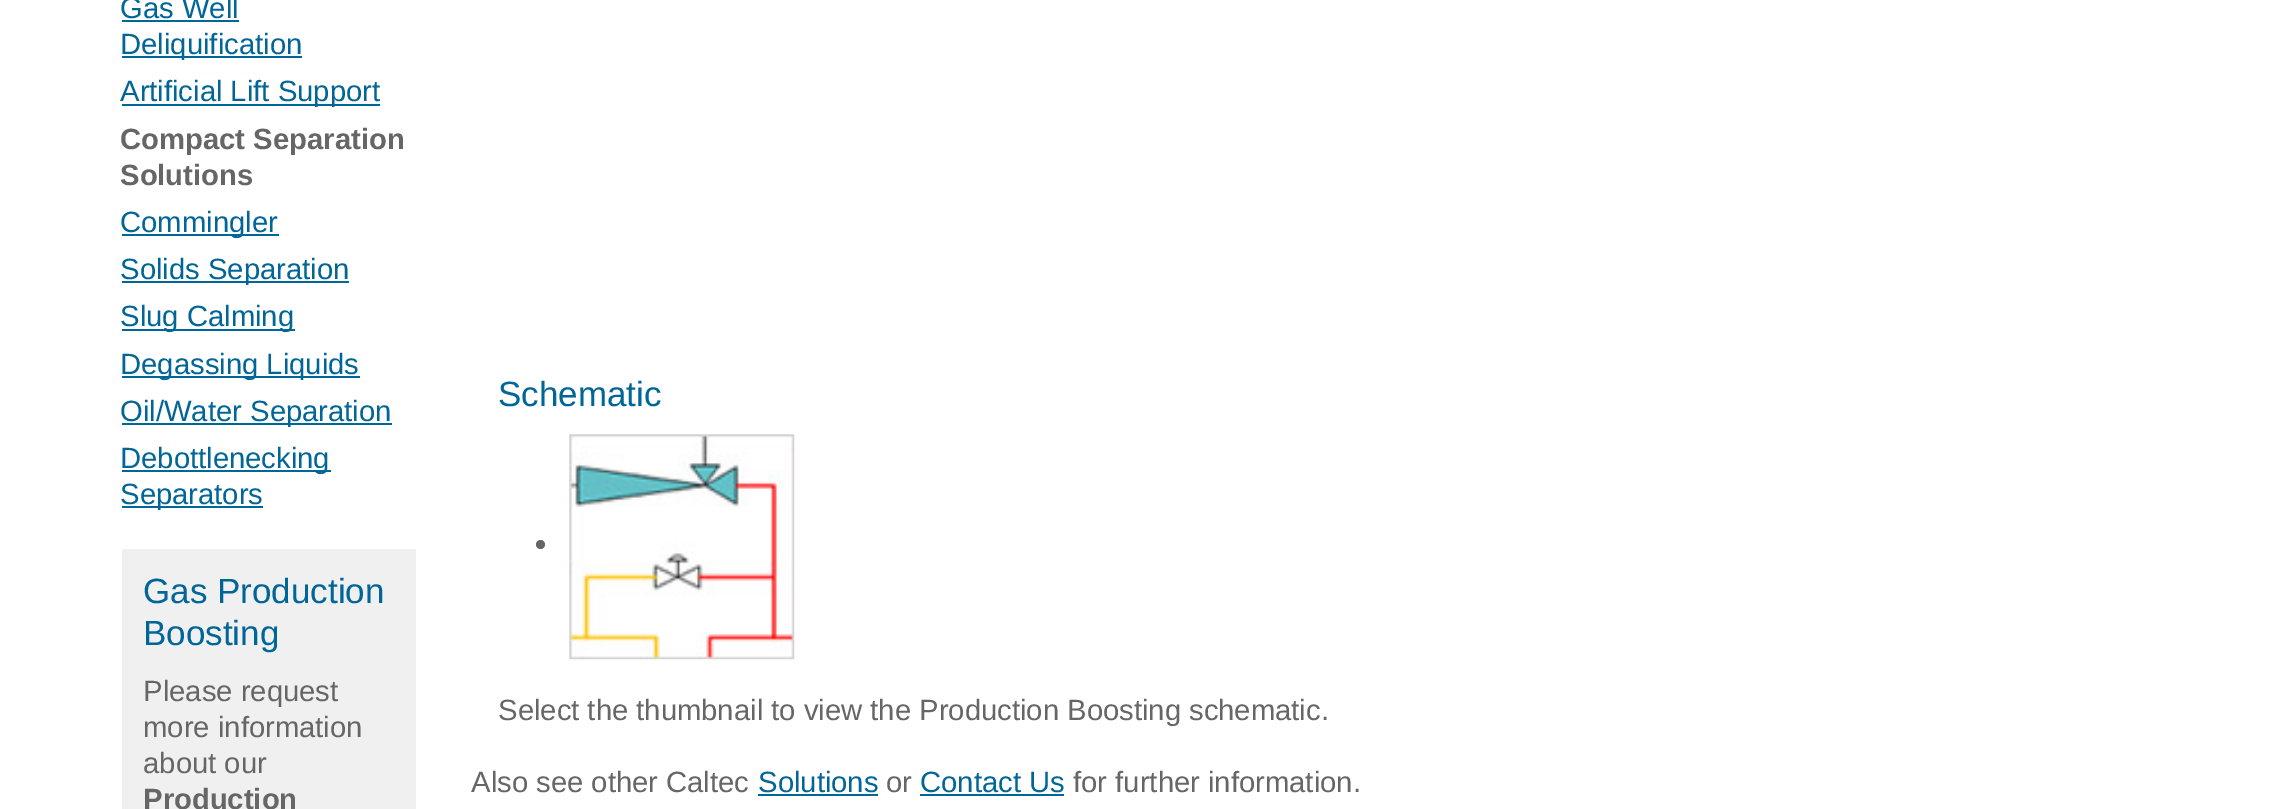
%!PS-Adobe-3.0
%%BoundingBox: 0 0 2292 809
%%LanguageLevel: 3
%%Pages: 1
%%EndComments
%%BeginProlog
/setink { dup -16 bitshift 255 div exch dup -8 bitshift 255 and 255 div exch 255 and 255 div setrgbcolor } def
/usefont { [ exch dup neg 0 0 3 -1 roll 0 0 ] selectfont } def
/disc { newpath 0 360 arc closepath } def
/drawimage { 5 dict begin { /h /w /y /x /name } { exch def } forall
  gsave x y translate w h scale
  w h 8 [w 0 0 h 0 0] name (r) file false 3 colorimage grestore end } def
%%EndProlog
%%BeginSetup
<< /PageSize [2292 809] >> setpagedevice
%%EndSetup
%%Page: 1 1
0 809 translate 1 -1 scale
4 setmiterlimit
16#FFFFFF setink
0 0 2292 809 rectfill
/LiberationSans-Regular 29.25 usefont
16#006597 setink
120 18 moveto (Gas Well) show
122 20 117 2 rectfill
122 56 180 2 rectfill
120 54 moveto (Deliquification) show
122 104 258 2 rectfill
120 101 moveto (Artificial Lift Support) show
/LiberationSans-Bold 29.25 usefont
16#666666 setink
120 149 moveto (Compact Separation) show
120 185 moveto (Solutions) show
16#006597 setink
122 234 157 2 rectfill
/LiberationSans-Regular 29.25 usefont
120 232 moveto (Commingler) show
122 281 227 2 rectfill
120 279 moveto (Solids Separation) show
122 329 173 2 rectfill
120 326 moveto (Slug Calming) show
122 376 238 2 rectfill
120 374 moveto (Degassing Liquids) show
122 423 270 2 rectfill
120 421 moveto (Oil/Water Separation) show
122 470 209 2 rectfill
120 468 moveto (Debottlenecking) show
122 506 141 2 rectfill
120 504 moveto (Separators) show
16#F0F0F0 setink
122 549 294 260 rectfill
/LiberationSans-Regular 35 usefont
16#006597 setink
143 603 moveto (Gas Production) show
143 645 moveto (Boosting) show
/LiberationSans-Regular 29.25 usefont
16#666666 setink
[
    [(Please request) 143 701]
    [(more information) 143 737]
    [(about our) 143 773]
] { aload pop moveto show } forall
/LiberationSans-Bold 29.25 usefont
143 809 moveto (Production) show
/LiberationSans-Regular 35 usefont
16#006597 setink
498 406 moveto (Schematic) show
16#666666 setink
540.5 544.5 4.5 disc fill
(img1.raw) 569 434 226 226 drawimage
/LiberationSans-Regular 29.25 usefont
498 720 moveto (Select the thumbnail to view the Production Boosting schematic.) show
471 792 moveto (Also see other Caltec) show
16#006597 setink
758 792 moveto (Solutions) show
758 794 120 2 rectfill
16#666666 setink
886 792 moveto (or) show
16#006597 setink
920 792 moveto (Contact Us) show
920 794 144 2 rectfill
16#666666 setink
1073 792 moveto (for further information.) show
showpage
%%EOF
